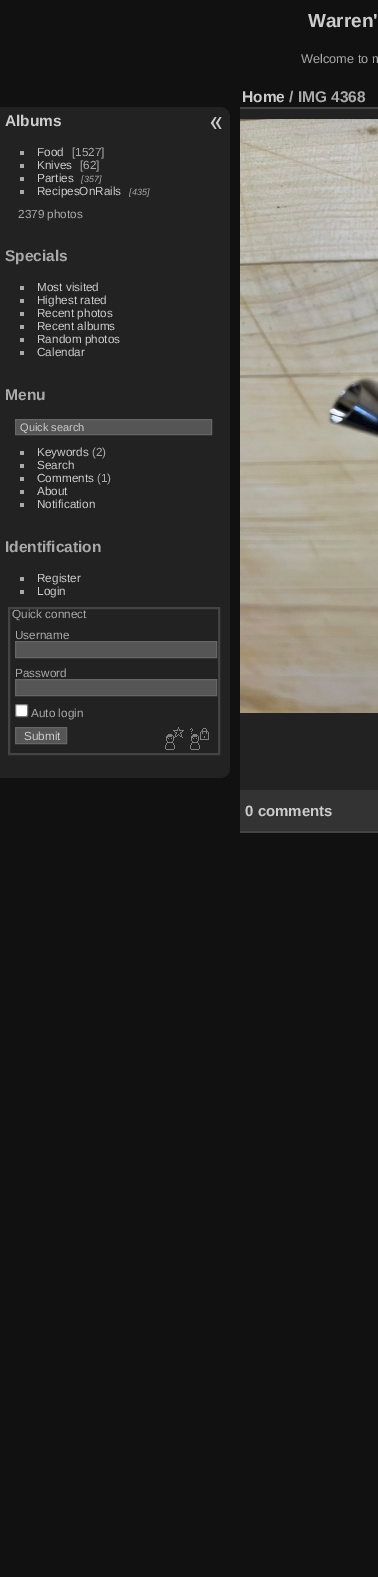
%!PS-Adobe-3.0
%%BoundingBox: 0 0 378 1577
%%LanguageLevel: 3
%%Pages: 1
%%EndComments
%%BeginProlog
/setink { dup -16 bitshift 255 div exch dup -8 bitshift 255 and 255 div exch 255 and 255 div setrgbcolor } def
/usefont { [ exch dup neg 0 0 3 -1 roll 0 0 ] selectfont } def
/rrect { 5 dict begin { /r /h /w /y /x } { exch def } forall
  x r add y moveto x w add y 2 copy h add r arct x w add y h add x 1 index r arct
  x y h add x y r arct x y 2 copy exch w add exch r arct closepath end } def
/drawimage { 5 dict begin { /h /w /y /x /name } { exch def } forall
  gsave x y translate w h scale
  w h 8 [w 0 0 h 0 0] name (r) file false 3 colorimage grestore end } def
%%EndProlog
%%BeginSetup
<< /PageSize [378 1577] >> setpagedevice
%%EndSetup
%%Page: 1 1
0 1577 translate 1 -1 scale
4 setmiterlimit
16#111111 setink
0 0 378 1577 rectfill
/LiberationSans-Bold 19 usefont
16#CCCCCC setink
308 27 moveto (Warren') show
/LiberationSans-Regular 12.75 usefont
16#AAAAAA setink
301 63 moveto (Welcome to m) show
16#222222 setink
0 107 moveto 220 107 lineto 225.5 107 230 111.5 230 117 curveto 230 768 lineto 230 773.5 225.5 778 220 778 curveto 0 778 lineto closepath fill
/LiberationSans-Bold 15.5 usefont
16#CCCCCC setink
5 126 moveto (Albums) show
16#AAAAAA setink
20 151 4 4 rectfill
/LiberationSans-Regular 11.75 usefont
16#CCCCCC setink
37 156 moveto (Food) show
16#AAAAAA setink
72 156 moveto ([1527]) show
20 164 4 4 rectfill
16#CCCCCC setink
37 169 moveto (Knives) show
16#AAAAAA setink
80 169 moveto ([62]) show
20 177 4 4 rectfill
16#CCCCCC setink
37 182 moveto (Parties) show
/LiberationSans-Italic 9 usefont
16#AAAAAA setink
81 182 moveto ([357]) show
20 190 4 4 rectfill
/LiberationSans-Regular 11.75 usefont
16#CCCCCC setink
37 195 moveto (RecipesOnRails) show
/LiberationSans-Italic 9 usefont
16#AAAAAA setink
129 195 moveto ([435]) show
/LiberationSans-Regular 11.75 usefont
18 218 moveto (2379 photos) show
/LiberationSans-Bold 15.5 usefont
5 261 moveto (Specials) show
20 286 4 4 rectfill
/LiberationSans-Regular 11.75 usefont
16#CCCCCC setink
37 291 moveto (Most visited) show
16#AAAAAA setink
20 299 4 4 rectfill
16#CCCCCC setink
37 304 moveto (Highest rated) show
16#AAAAAA setink
20 312 4 4 rectfill
16#CCCCCC setink
37 317 moveto (Recent photos) show
16#AAAAAA setink
20 325 4 4 rectfill
16#CCCCCC setink
37 330 moveto (Recent albums) show
16#AAAAAA setink
20 338 4 4 rectfill
16#CCCCCC setink
37 343 moveto (Random photos) show
16#AAAAAA setink
20 351 4 4 rectfill
16#CCCCCC setink
37 356 moveto (Calendar) show
/LiberationSans-Bold 15.5 usefont
16#AAAAAA setink
5 400 moveto (Menu) show
16#555555 setink
15.5 419.5 moveto 211.5 419.5 lineto 211.5 434.5 lineto 15.5 434.5 lineto closepath gsave fill grestore
16#666666 setink
stroke
/LiberationSans-Regular 11 usefont
16#CCCCCC setink
20 431 moveto (Quick search) show
16#AAAAAA setink
20 451 4 4 rectfill
/LiberationSans-Regular 11.75 usefont
16#CCCCCC setink
37 456 moveto (Keywords) show
16#AAAAAA setink
92 456 moveto (\(2\)) show
20 464 4 4 rectfill
16#CCCCCC setink
37 469 moveto (Search) show
16#AAAAAA setink
20 477 4 4 rectfill
16#CCCCCC setink
37 482 moveto (Comments) show
16#AAAAAA setink
97 482 moveto (\(1\)) show
20 490 4 4 rectfill
16#CCCCCC setink
37 495 moveto (About) show
16#AAAAAA setink
20 503 4 4 rectfill
16#CCCCCC setink
37 508 moveto (Notification) show
/LiberationSans-Bold 15.5 usefont
16#AAAAAA setink
5 552 moveto (Identification) show
20 577 4 4 rectfill
/LiberationSans-Regular 11.75 usefont
16#CCCCCC setink
37 582 moveto (Register) show
16#AAAAAA setink
20 590 4 4 rectfill
16#CCCCCC setink
37 595 moveto (Login) show
16#444444 setink
2 setlinewidth
9 608 210 146 rectstroke
16#AAAAAA setink
12 618 moveto (Quick connect) show
15 639 moveto (Username) show
16#555555 setink
15.5 641.5 moveto 216.5 641.5 lineto 216.5 657.5 lineto 15.5 657.5 lineto closepath gsave fill grestore
16#666666 setink
1 setlinewidth
stroke
16#AAAAAA setink
15 677 moveto (Password) show
16#555555 setink
15.5 679.5 moveto 216.5 679.5 lineto 216.5 695.5 lineto 15.5 695.5 lineto closepath gsave fill grestore
16#666666 setink
stroke
16#FFFFFF setink
15.5 704.5 12 12 1.5 rrect gsave fill grestore
16#767676 setink
stroke
16#AAAAAA setink
31 717 moveto (Auto login) show
16#555555 setink
15.5 727.5 moveto 66.5 727.5 lineto 66.5 743.5 lineto 15.5 743.5 lineto closepath gsave fill grestore
16#666666 setink
stroke
16#CCCCCC setink
24 740 moveto (Submit) show
(img1.raw) 165 727 19 23 drawimage
(img2.raw) 190 728 19 22 drawimage
(img3.raw) 210 117 12 12 drawimage
[
    [240 109 138 681 16#222222]
    [240 831 138 2 16#444444]
    [240 107 138 2 16#444444]
] { aload pop setink rectfill } forall
/LiberationSans-Bold 15.5 usefont
16#CCCCCC setink
242 102 moveto (Home) show
16#AAAAAA setink
289 102 moveto (/ IMG 4368) show
(img4.raw) 240 119 138 594 drawimage
16#333333 setink
240 790 138 41 rectfill
/LiberationSans-Bold 15 usefont
16#CCCCCC setink
245 816 moveto (0 comments) show
showpage
%%EOF
